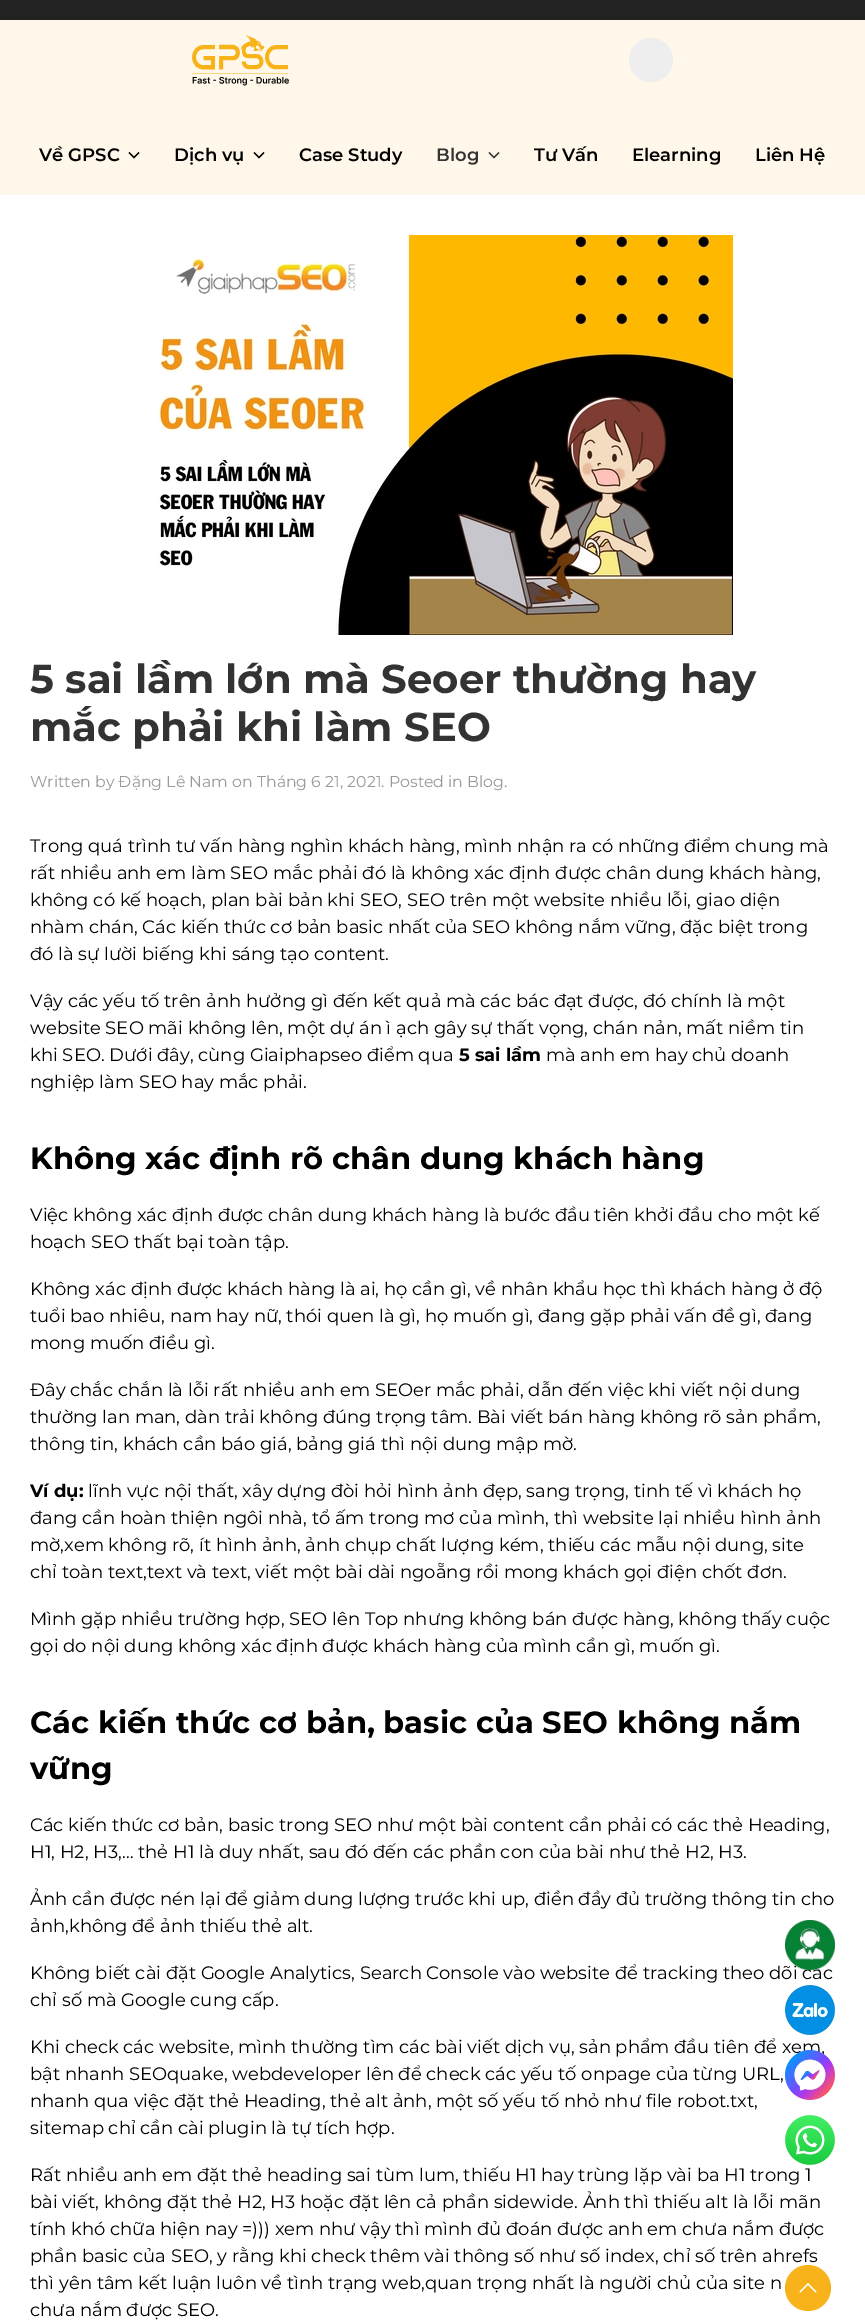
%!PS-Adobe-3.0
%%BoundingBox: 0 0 865 2321
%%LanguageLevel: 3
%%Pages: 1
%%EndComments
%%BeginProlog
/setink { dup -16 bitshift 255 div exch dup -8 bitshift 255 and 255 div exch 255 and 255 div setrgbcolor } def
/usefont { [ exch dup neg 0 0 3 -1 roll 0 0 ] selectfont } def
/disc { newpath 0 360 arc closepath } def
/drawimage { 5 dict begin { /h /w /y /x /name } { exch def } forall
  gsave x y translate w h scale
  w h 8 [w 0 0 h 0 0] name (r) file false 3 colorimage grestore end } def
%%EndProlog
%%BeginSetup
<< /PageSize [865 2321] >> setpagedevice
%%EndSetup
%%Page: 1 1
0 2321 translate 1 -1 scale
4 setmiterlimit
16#FFFFFF setink
0 0 865 2321 rectfill
16#222222 setink
0 0 865 20 rectfill
16#FFF7E9 setink
0 20 865 175 rectfill
(img1.raw) 192 34 97 52 drawimage
16#EEEEEE setink
651 60 22 disc fill
/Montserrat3-Thin 18 usefont
16#000000 setink
39 161 moveto (Về GPSC) show
1.1 setlinewidth
129 152.5 moveto 134 157.5 lineto 139 152.5 lineto stroke
174 161 moveto (Dịch vụ) show
254 152.5 moveto 259 157.5 lineto 264 152.5 lineto stroke
299 161 moveto (Case Study) show
16#333333 setink
436 161 moveto (Blog) show
489 152.5 moveto 494 157.5 lineto 499 152.5 lineto stroke
16#000000 setink
[
    [(Tư Vấn) 534 161]
    [(Elearning) 632 161]
    [(Liên Hệ) 755 161]
] { aload pop moveto show } forall
(img2.raw) 158 235 575 400 drawimage
/Montserrat-Thin 40.2 usefont
16#333333 setink
30 693 moveto (5 sai lầm lớn mà Seoer thường hay) show
30 741 moveto (mắc phải khi làm SEO) show
/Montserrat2-Thin 15.75 usefont
16#999999 setink
30 787 moveto (Written by Đặng Lê Nam on Tháng 6 21, 2021. Posted in Blog.) show
/Montserrat2-Thin 18 usefont
16#000000 setink
[
    [(Trong quá trình tư vấn hàng nghìn khách hàng, mình nhận ra có những điểm chung mà) 30 852]
    [(rất nhiều anh em làm SEO mắc phải đó là không xác định được chân dung khách hàng,) 30 879]
    [(không có kế hoạch, plan bài bản khi SEO, SEO trên một website nhiều lỗi, giao diện) 30 906]
    [(nhàm chán, Các kiến thức cơ bản basic nhất của SEO không nắm vững, đặc biệt trong) 30 933]
    [(đó là sự lười biếng khi sáng tạo content.) 30 960]
    [(Vậy các yếu tố trên ảnh hưởng gì đến kết quả mà các bác đạt được, đó chính là một) 30 1007]
    [(website SEO mãi không lên, một dự án ì ạch gây sự thất vọng, chán nản, mất niềm tin) 30 1034]
    [(khi SEO. Dưới đây, cùng Giaiphapseo điểm qua) 30 1061]
] { aload pop moveto show } forall
/Montserrat-Thin 18 usefont
459 1061 moveto (5 sai lầm) show
/Montserrat2-Thin 18 usefont
546 1061 moveto (mà anh em hay chủ doanh) show
30 1088 moveto (nghiệp làm SEO hay mắc phải.) show
/Montserrat-Thin 30.6 usefont
30 1169 moveto (Không xác định rõ chân dung khách hàng) show
/Montserrat2-Thin 18 usefont
[
    [(Việc không xác định được chân dung khách hàng là bước đầu tiên khởi đầu cho một kế) 30 1221]
    [(hoạch SEO thất bại toàn tập.) 30 1248]
    [(Không xác định được khách hàng là ai, họ cần gì, về nhân khẩu học thì khách hàng ở độ) 30 1295]
    [(tuổi bao nhiêu, nam hay nữ, thói quen là gì, họ muốn gì, đang gặp phải vấn đề gì, đang) 30 1322]
    [(mong muốn điều gì.) 30 1349]
    [(Đây chắc chắn là lỗi rất nhiều anh em SEOer mắc phải, dẫn đến việc khi viết nội dung) 30 1396]
    [(thường lan man, dàn trải không đúng trọng tâm. Bài viết bán hàng không rõ sản phẩm,) 30 1423]
    [(thông tin, khách cần báo giá, bảng giá thì nội dung mập mờ.) 30 1450]
] { aload pop moveto show } forall
/Montserrat-Thin 18 usefont
30 1497 moveto (Ví dụ:) show
/Montserrat2-Thin 18 usefont
[
    [(lĩnh vực nội thất, xây dựng đòi hỏi hình ảnh đẹp, sang trọng, tinh tế vì khách họ) 88 1497]
    [(đang cần hoàn thiện ngôi nhà, tổ ấm trong mơ của mình, thì website lại nhiều hình ảnh) 30 1524]
    [(mờ,xem không rõ, ít hình ảnh, ảnh chụp chất lượng kém, thiếu các mẫu nội dung, site) 30 1551]
    [(chỉ toàn text,text và text, viết một bài dài ngoẵng rồi mong khách gọi điện chốt đơn.) 30 1578]
    [(Mình gặp nhiều trường hợp, SEO lên Top nhưng không bán được hàng, không thấy cuộc) 30 1625]
    [(gọi do nội dung không xác định được khách hàng của mình cần gì, muốn gì.) 30 1652]
] { aload pop moveto show } forall
/Montserrat-Thin 30.6 usefont
30 1733 moveto (Các kiến thức cơ bản, basic của SEO không nắm) show
30 1779 moveto (vững) show
/Montserrat2-Thin 18 usefont
[
    [(Các kiến thức cơ bản, basic trong SEO như một bài content cần phải có các thẻ Heading,) 30 1831]
    [(H1, H2, H3,… thẻ H1 là duy nhất, sau đó đến các phần con của bài như thẻ H2, H3.) 30 1858]
    [(Ảnh cần được nén lại để giảm dung lượng trước khi up, điền đầy đủ trường thông tin cho) 30 1905]
    [(ảnh,không để ảnh thiếu thẻ alt.) 30 1932]
    [(Không biết cài đặt Google Analytics, Search Console vào website để tracking theo dõi các) 30 1979]
    [(chỉ số mà Google cung cấp.) 30 2006]
    [(Khi check các website, mình thường tìm các bài viết dịch vụ, sản phẩm đầu tiên để xem,) 30 2053]
    [(bật nhanh SEOquake, webdeveloper lên để check các yếu tố onpage của từng URL,) 30 2080]
    [(nhanh qua việc đặt thẻ Heading, thẻ alt ảnh, một số yếu tố nhỏ như file robot.txt,) 30 2107]
    [(sitemap chỉ cần cài plugin là tự tích hợp.) 30 2134]
    [(Rất nhiều anh em đặt thẻ heading sai tùm lum, thiếu H1 hay trùng lặp vài ba H1 trong 1) 30 2181]
    [(bài viết, không đặt thẻ H2, H3 hoặc đặt lên cả phần sidewide. Ảnh thì thiếu alt là lỗi mãn) 30 2208]
    [(tính khó chữa hiện nay =\)\)\) xem như vậy thì mình đủ đoán được anh em chưa nắm được) 30 2235]
    [(phần basic của SEO, y rằng khi check thêm vài thông số như số index, chỉ số trên ahrefs) 30 2262]
    [(thì yên tâm kết luận luôn về tình trạng web,quan trọng nhất là người chủ của site n) 30 2289]
    [(chưa nắm được SEO.) 30 2316]
] { aload pop moveto show } forall
(img3.raw) 785 1920 50 50 drawimage
(img4.raw) 785 1985 50 50 drawimage
(img5.raw) 785 2050 50 50 drawimage
(img6.raw) 785 2115 50 50 drawimage
16#F7B319 setink
808 2288 23 disc fill
16#FFFFFF setink
1.2 setlinewidth
800 2292 moveto 808 2284 lineto 816 2292 lineto stroke
showpage
%%EOF
